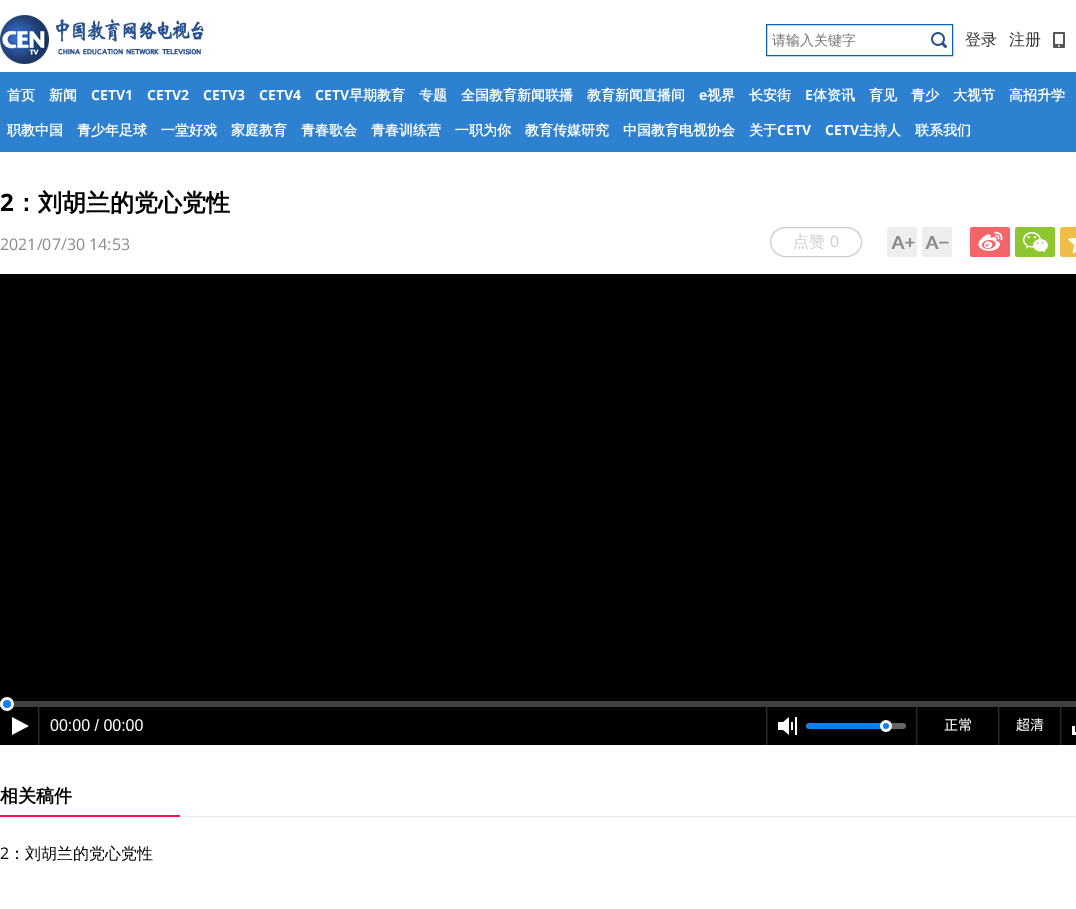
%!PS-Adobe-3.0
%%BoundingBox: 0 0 1076 909
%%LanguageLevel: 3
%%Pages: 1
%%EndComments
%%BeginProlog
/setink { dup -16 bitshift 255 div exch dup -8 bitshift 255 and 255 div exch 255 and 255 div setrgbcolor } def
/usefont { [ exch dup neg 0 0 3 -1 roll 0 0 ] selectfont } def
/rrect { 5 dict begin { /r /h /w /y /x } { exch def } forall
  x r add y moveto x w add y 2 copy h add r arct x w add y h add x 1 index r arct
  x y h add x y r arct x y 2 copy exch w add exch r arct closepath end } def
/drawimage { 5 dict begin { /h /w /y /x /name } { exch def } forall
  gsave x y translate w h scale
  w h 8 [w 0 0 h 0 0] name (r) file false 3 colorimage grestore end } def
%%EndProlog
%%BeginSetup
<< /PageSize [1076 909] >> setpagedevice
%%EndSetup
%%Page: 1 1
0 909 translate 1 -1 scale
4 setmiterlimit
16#FFFFFF setink
0 0 1076 909 rectfill
(img1.raw) 0 15 204 49 drawimage
16#0864BB setink
766.5 24.5 186 31 rectstroke
/WenQuanYiZenHei-Medium 14 usefont
16#757575 setink
772 45 moveto (请输入关键字) show
(img2.raw) 931 32 16 16 drawimage
/WenQuanYiZenHei-Medium 16 usefont
16#333333 setink
965 45 moveto (登录) show
1009 45 moveto (注册) show
(img3.raw) 1053 32 12 16 drawimage
16#2D81D0 setink
0 72 1076 80 rectfill
/WenQuanYiZenHei-Bold 14 usefont
16#FFFFFF setink
7 100 moveto (首页) show
49 100 moveto (新闻) show
/OpenSans-Bold 14 usefont
[
    [(CETV1) 91 100]
    [(CETV2) 147 100]
    [(CETV3) 203 100]
    [(CETV4) 259 100]
    [(CETV) 315 100]
] { aload pop moveto show } forall
/WenQuanYiZenHei-Bold 14 usefont
[
    [(早期教育) 349 100]
    [(专题) 419 100]
    [(全国教育新闻联播) 461 100]
    [(教育新闻直播间) 587 100]
] { aload pop moveto show } forall
/OpenSans-Bold 14 usefont
699 100 moveto (e) show
/WenQuanYiZenHei-Bold 14 usefont
707 100 moveto (视界) show
749 100 moveto (长安街) show
/OpenSans-Bold 14 usefont
805 100 moveto (E) show
/WenQuanYiZenHei-Bold 14 usefont
[
    [(体资讯) 813 100]
    [(育见) 869 100]
    [(青少) 911 100]
    [(大视节) 953 100]
    [(高招升学) 1009 100]
    [(职教中国) 7 135]
    [(青少年足球) 77 135]
    [(一堂好戏) 161 135]
    [(家庭教育) 231 135]
    [(青春歌会) 301 135]
    [(青春训练营) 371 135]
    [(一职为你) 455 135]
    [(教育传媒研究) 525 135]
    [(中国教育电视协会) 623 135]
    [(关于) 749 135]
] { aload pop moveto show } forall
/OpenSans-Bold 14 usefont
777 135 moveto (CETV) show
825 135 moveto (CETV) show
/WenQuanYiZenHei-Bold 14 usefont
859 135 moveto (主持人) show
915 135 moveto (联系我们) show
/OpenSans-Bold 24 usefont
16#000000 setink
0 211 moveto (2) show
/WenQuanYiZenHei-Bold 24 usefont
14 211 moveto (：刘胡兰的党心党性) show
/OpenSans-Regular 16 usefont
16#8A8A8A setink
0 250 moveto (2021/07/30 14:53) show
16#CDCDCD setink
770.5 227.5 91 29 14.5 rrect stroke
/WenQuanYiZenHei-Medium 16 usefont
793 247 moveto (点赞) show
/OpenSans-Regular 16 usefont
830 247 moveto (0) show
(img4.raw) 887 227 30 30 drawimage
(img5.raw) 922 227 30 30 drawimage
(img6.raw) 970 227 40 30 drawimage
(img7.raw) 1015 227 40 30 drawimage
(img8.raw) 1060 227 16 30 drawimage
(img9.raw) 0 274 1076 471 drawimage
16#E9E9E9 setink
180 816 896 1 rectfill
16#FF0C56 setink
0 815 180 2 rectfill
/WenQuanYiZenHei-Bold 18 usefont
16#000000 setink
0 802 moveto (相关稿件) show
/OpenSans-Regular 16 usefont
0 859 moveto (2) show
/WenQuanYiZenHei-Medium 16 usefont
9 859 moveto (：刘胡兰的党心党性) show
showpage
%%EOF
